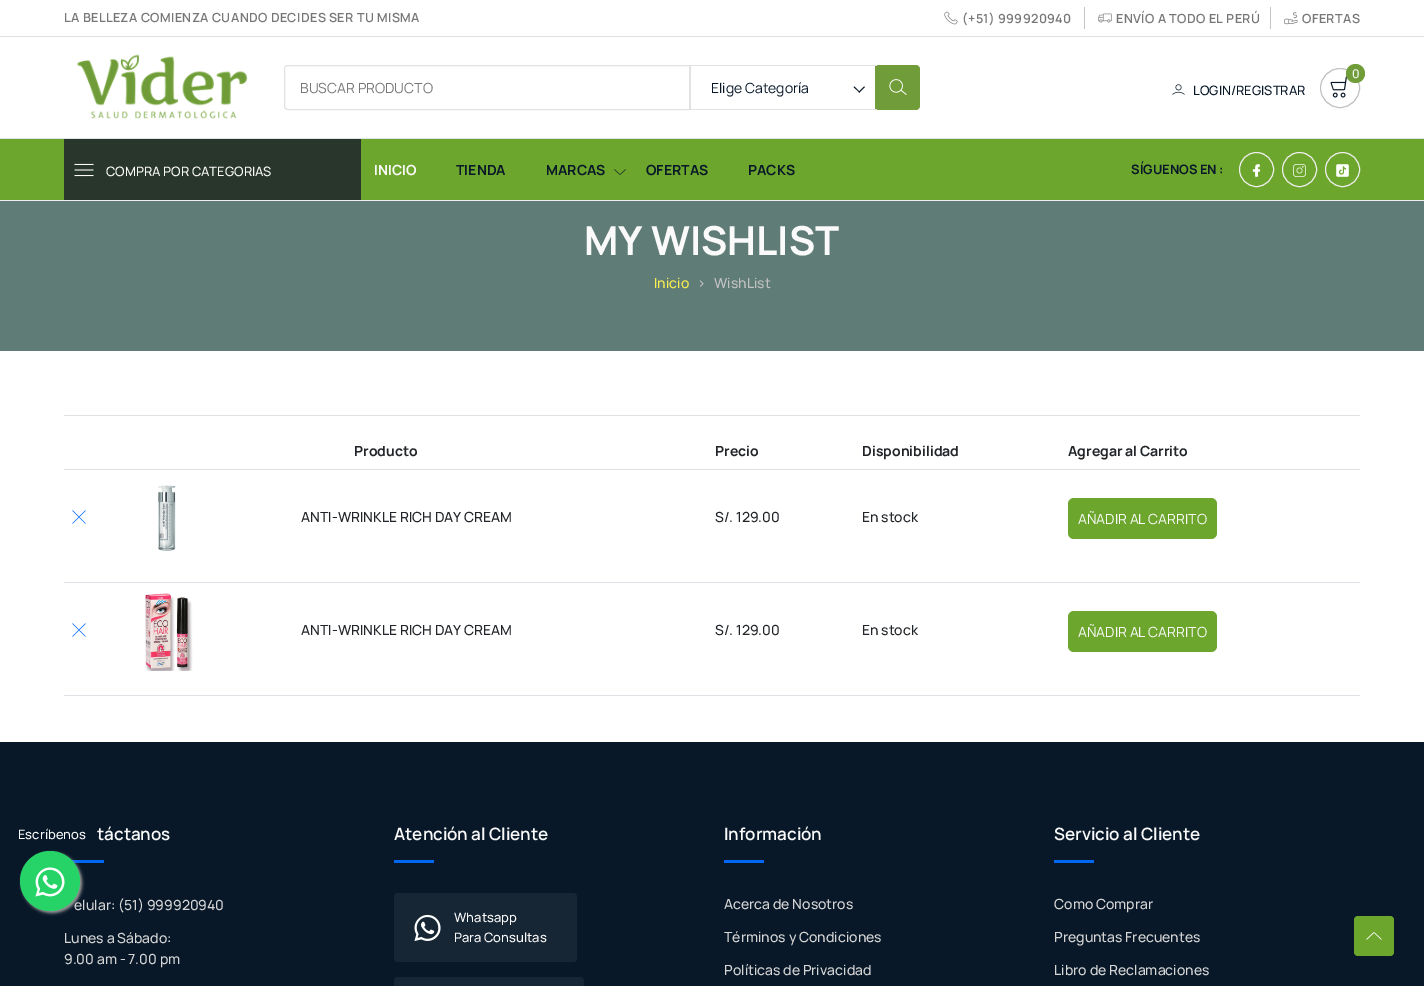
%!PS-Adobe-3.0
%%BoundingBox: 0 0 1424 986
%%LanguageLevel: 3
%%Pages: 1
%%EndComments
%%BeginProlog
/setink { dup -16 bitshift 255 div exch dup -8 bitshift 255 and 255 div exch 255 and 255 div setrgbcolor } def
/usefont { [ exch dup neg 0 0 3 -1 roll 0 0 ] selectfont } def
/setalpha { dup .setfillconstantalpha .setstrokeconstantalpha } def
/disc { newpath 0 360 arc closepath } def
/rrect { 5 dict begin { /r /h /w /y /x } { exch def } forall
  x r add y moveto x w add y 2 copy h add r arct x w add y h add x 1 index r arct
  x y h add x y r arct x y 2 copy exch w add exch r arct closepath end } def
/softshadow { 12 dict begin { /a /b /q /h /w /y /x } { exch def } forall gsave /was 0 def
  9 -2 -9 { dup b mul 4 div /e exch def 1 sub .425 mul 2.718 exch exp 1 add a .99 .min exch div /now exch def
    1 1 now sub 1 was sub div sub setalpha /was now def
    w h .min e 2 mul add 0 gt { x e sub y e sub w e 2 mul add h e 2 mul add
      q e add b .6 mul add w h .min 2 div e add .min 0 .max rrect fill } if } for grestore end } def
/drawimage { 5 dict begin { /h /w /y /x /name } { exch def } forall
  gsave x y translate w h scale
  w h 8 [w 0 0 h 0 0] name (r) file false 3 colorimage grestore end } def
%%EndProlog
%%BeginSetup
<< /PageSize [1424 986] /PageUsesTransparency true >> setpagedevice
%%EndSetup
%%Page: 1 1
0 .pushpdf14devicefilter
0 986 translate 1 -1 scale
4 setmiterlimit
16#FFFFFF setink
0 0 1424 986 rectfill
16#EEEEEE setink
0 200 1424 1 rectfill
16#DEE2E6 setink
0 36 1424 1 rectfill
/Manrope-SemiBold 12.6 usefont
16#777777 setink
64 22 moveto 0.4 0 (LA BELLEZA COMIENZA CUANDO DECIDES SER TU MISMA) ashow
16#C5C5C5 setink
1084 7 1 22 rectfill
(img1.raw) 944 11 14 14 drawimage
16#777777 setink
962 23 moveto 0.4 0 (\(+51\) 999920940) ashow
16#C5C5C5 setink
1270 7 1 22 rectfill
(img2.raw) 1098 13 14 10 drawimage
16#777777 setink
1116 23 moveto 0.4 0 (ENVÍO A TODO EL PERÚ) ashow
(img3.raw) 1284 11 14 14 drawimage
1302 23 moveto 0.4 0 (OFERTAS) ashow
16#DEE2E6 setink
0 138 1424 1 rectfill
(img4.raw) 77 54 171 65 drawimage
16#E2E2E2 setink
288 65.5 moveto 689.5 65.5 lineto 689.5 109.5 lineto 288 109.5 lineto 286 109.5 284.5 108 284.5 106 curveto 284.5 69 lineto 284.5 67 286 65.5 288 65.5 curveto closepath stroke
/Manrope-Regular 14 usefont
16#777777 setink
300 93 moveto (BUSCAR PRODUCTO) show
16#709C39 setink
875 65 moveto 916 65 lineto 918 65 920 67 920 69 curveto 920 106 lineto 920 108 918 110 916 110 curveto 875 110 lineto closepath fill
[
    [690 65 187 1 16#E2E2E2]
    [690 109 187 1 16#E2E2E2]
    [690 65 1 45 16#E2E2E2]
] { aload pop setink rectfill } forall
16#081828 setink
711 93 moveto (Elige Categoría) show
864 86.5 moveto 865 87 lineto 859.5 92.5 lineto 858.5 92 lineto closepath fill
854.5 86.5 moveto 860 92 lineto 859.5 92.5 lineto 853.5 87 lineto closepath fill
(img5.raw) 889 79 18 16 drawimage
16#C2C2C2 setink
1340 88 19.5 disc stroke
(img6.raw) 1330 76 18 22 drawimage
16#709C39 setink
1355.5 73.5 9.5 disc fill
/Manrope-Medium 12 usefont
16#FAFAFA setink
1352 78 moveto (0) show
(img7.raw) 1172 84 13 11 drawimage
/Manrope-Medium 13 usefont
16#081828 setink
1193 95 moveto (LOGIN/REGISTRAR) show
16#6DA62D setink
0 139 1424 61 rectfill
16#29362B setink
64 139 297 61 rectfill
(img8.raw) 74 163 20 14 drawimage
16#FAFAFA setink
106 176 moveto (COMPRA POR CATEGORIAS) show
/Manrope-Bold 14 usefont
374 175 moveto (INICIO) show
16#081828 setink
456 175 moveto (TIENDA) show
546 175 moveto (MARCAS) show
(img9.raw) 614 169 12 6 drawimage
646 175 moveto (OFERTAS) show
748 175 moveto (PACKS) show
/Manrope-Bold 13 usefont
1131 174 moveto (SÍGUENOS EN :) show
16#EEEEEE setink
1256.5 169.5 17 disc stroke
(img10.raw) 1252 164 9 13 drawimage
1299.5 169.5 17 disc stroke
(img11.raw) 1293 164 13 13 drawimage
1342.5 169.5 17 disc stroke
(img12.raw) 1336 164 13 13 drawimage
16#607C76 setink
0 201 1424 150 rectfill
/Manrope-Bold 40 usefont
16#FAFAFA setink
584 255 moveto (MY WISHLIST) show
/Manrope-Medium 14 usefont
16#F9EF50 setink
654 288 moveto (Inicio) show
16#C2C2C2 setink
697 288 moveto (>) show
714 288 moveto (WishList) show
16#E1E1E1 setink
64 415 1296 1 rectfill
/Manrope-Bold 14 usefont
16#212529 setink
[
    [(Producto) 354 456]
    [(Precio) 715 456]
    [(Disponibilidad) 862 456]
] { aload pop moveto show } forall
16#DEE2E6 setink
64 469 1296 1 rectfill
16#212529 setink
1068 456 moveto (Agregar al Carrito) show
(img13.raw) 72 510 14 14 drawimage
(img14.raw) 158 485 18 66 drawimage
/Manrope-Medium 14 usefont
[
    [(ANTI-WRINKLE RICH DAY CREAM) 301 522]
    [(S/. 129.00) 715 522]
    [(En stock) 862 522]
] { aload pop moveto show } forall
16#DEE2E6 setink
64 582 1296 1 rectfill
16#6DA62D setink
1068 498 149 41 6 rrect fill
/Manrope-Regular 14 usefont
16#FAFAFA setink
1078 524 moveto (AÑADIR AL CARRITO) show
(img13.raw) 72 623 14 14 drawimage
(img15.raw) 145 593 48 78 drawimage
/Manrope-Medium 14 usefont
16#212529 setink
[
    [(ANTI-WRINKLE RICH DAY CREAM) 301 635]
    [(S/. 129.00) 715 635]
    [(En stock) 862 635]
] { aload pop moveto show } forall
16#DEE2E6 setink
64 695 1296 1 rectfill
16#6DA62D setink
1068 611 149 41 6 rrect fill
/Manrope-Regular 14 usefont
16#FAFAFA setink
1078 637 moveto (AÑADIR AL CARRITO) show
16#081828 setink
0 742 1424 244 rectfill
16#0167F3 setink
64 860 40 3 rectfill
16#999999 setink
22 853 60 60 30 1.5 1 softshadow
/Manrope-Medium 14 usefont
16#D6D6D6 setink
74 910 moveto (elular: \(51\) 999920940) show
16#25D366 setink
50 881 30 disc fill
/Manrope-Medium 13 usefont
16#FAFAFA setink
18 839 moveto (Escríbenos) show
(img16.raw) 35 867 30 30 drawimage
/Manrope-SemiBold 17 usefont
97 840 moveto (táctanos) show
/Manrope-Medium 14 usefont
16#D6D6D6 setink
64 943 moveto (Lunes a Sábado:) show
64 964 moveto (9.00 am - 7.00 pm) show
/Manrope-SemiBold 17 usefont
16#FAFAFA setink
394 840 moveto (Atención al Cliente) show
16#0167F3 setink
394 860 40 3 rectfill
16#172635 setink
394 893 183 69 4 rrect fill
(img17.raw) 414 914 27 27 drawimage
/Manrope-Medium 13 usefont
16#FAFAFA setink
454 922 moveto (Whatsapp) show
454 942 moveto (Para Consultas) show
16#172635 setink
394 977 190 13 4 rrect fill
/Manrope-SemiBold 17 usefont
16#FAFAFA setink
724 840 moveto (Información) show
16#0167F3 setink
724 860 40 3 rectfill
/Manrope-Medium 14 usefont
16#D6D6D6 setink
[
    [(Acerca de Nosotros) 724 909]
    [(Términos y Condiciones) 724 942]
    [(Políticas de Privacidad) 724 975]
] { aload pop moveto show } forall
/Manrope-SemiBold 17 usefont
16#FAFAFA setink
1054 840 moveto (Servicio al Cliente) show
16#0167F3 setink
1054 860 40 3 rectfill
/Manrope-Medium 14 usefont
16#D6D6D6 setink
[
    [(Como Comprar) 1054 909]
    [(Preguntas Frecuentes) 1054 942]
    [(Libro de Reclamaciones) 1054 975]
] { aload pop moveto show } forall
16#6DA62D setink
1354 916 40 40 4 rrect fill
(img18.raw) 1366 932 16 8 drawimage
.poppdf14devicefilter showpage
%%EOF
